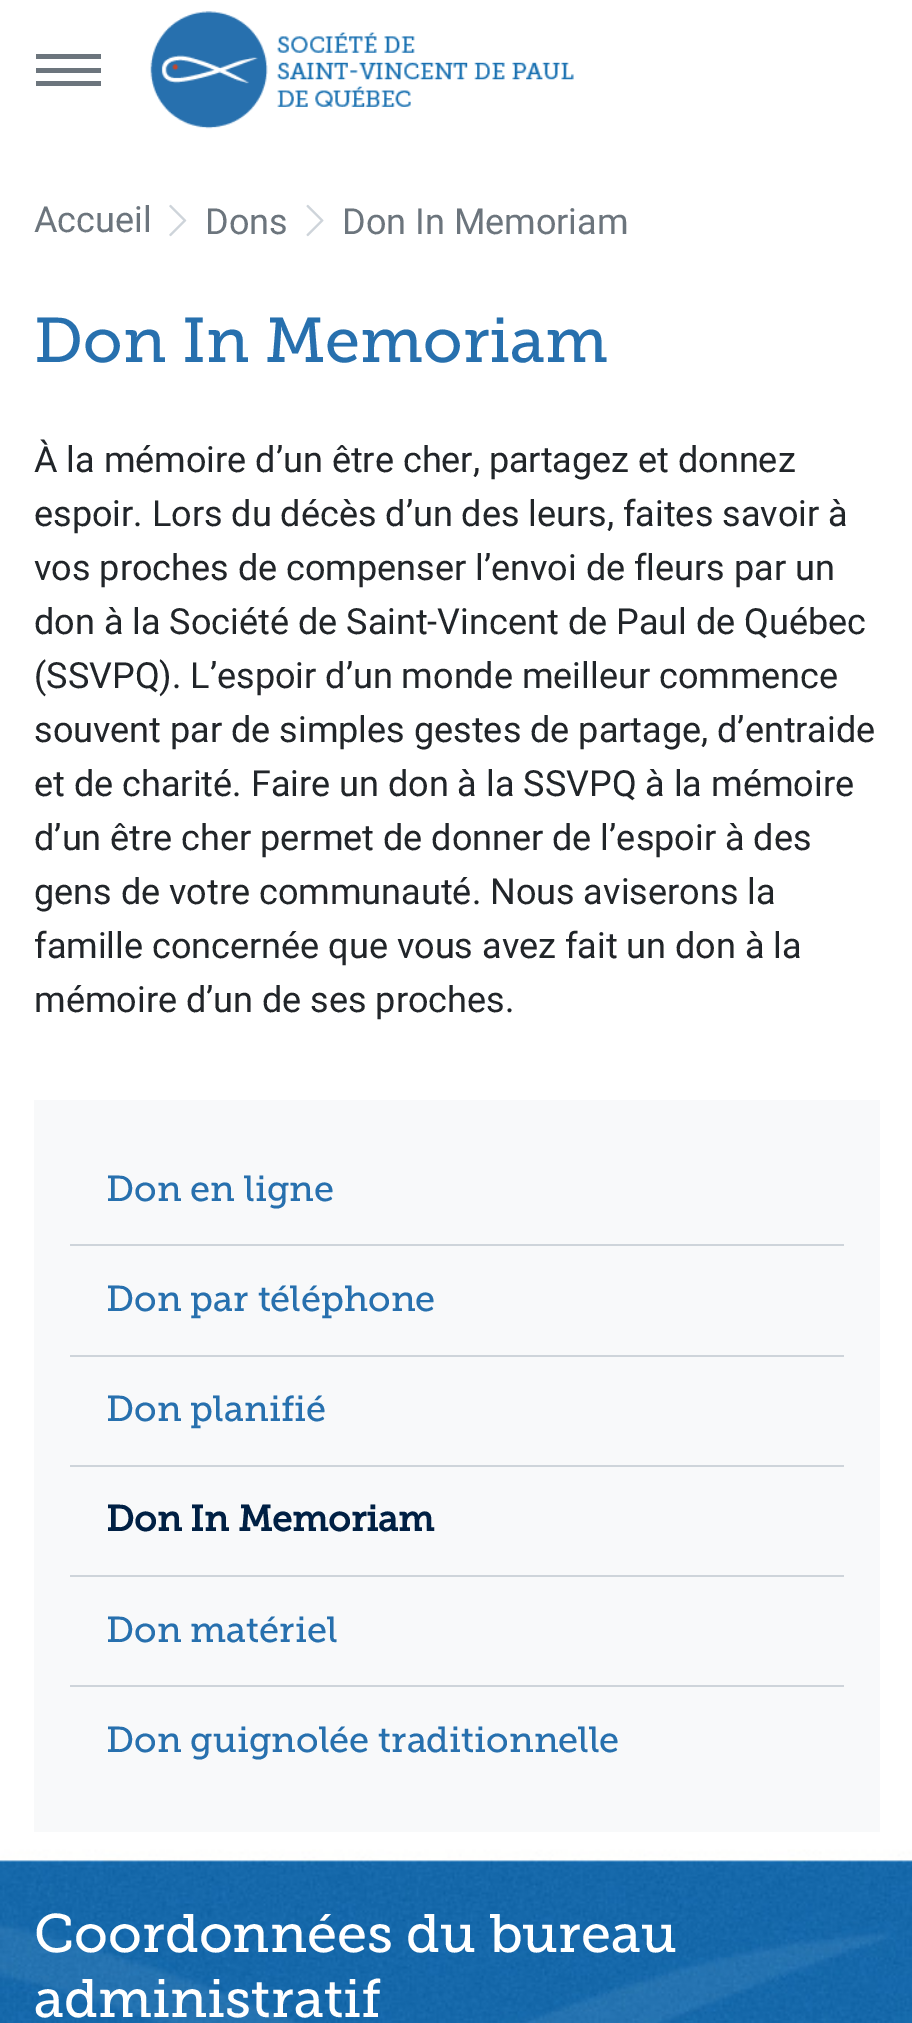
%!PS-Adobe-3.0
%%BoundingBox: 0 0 912 2023
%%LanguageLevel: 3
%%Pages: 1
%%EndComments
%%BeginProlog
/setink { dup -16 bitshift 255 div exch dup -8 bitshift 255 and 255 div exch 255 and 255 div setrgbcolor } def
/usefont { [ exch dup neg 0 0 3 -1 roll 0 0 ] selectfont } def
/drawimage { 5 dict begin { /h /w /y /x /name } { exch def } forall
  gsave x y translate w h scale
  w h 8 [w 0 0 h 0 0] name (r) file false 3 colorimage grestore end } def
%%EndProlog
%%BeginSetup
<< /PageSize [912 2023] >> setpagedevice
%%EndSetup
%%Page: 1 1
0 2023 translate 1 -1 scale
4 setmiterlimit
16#FFFFFF setink
0 0 912 2023 rectfill
[
    [36 68 65 5 16#6C757D]
    [36 54 65 5 16#6C757D]
    [36 81 65 5 16#6C757D]
] { aload pop setink rectfill } forall
(img1.raw) 150 11 424 118 drawimage
/Roboto-Regular 36 usefont
34 232 moveto (Accueil) show
(img2.raw) 169 204 18 33 drawimage
205 234 moveto (Dons) show
(img3.raw) 306 204 18 33 drawimage
342 234 moveto (Don In Memoriam) show
/MuseoSlab-Regular 63 usefont
16#2770AE setink
34 362 moveto (Don In Memoriam) show
/Roboto-Regular 36 usefont
16#212529 setink
[
    [(À la mémoire d’un être cher, partagez et donnez) 34 472]
    [(espoir. Lors du décès d’un des leurs, faites savoir à) 34 526]
    [(vos proches de compenser l’envoi de fleurs par un) 34 580]
    [(don à la Société de Saint-Vincent de Paul de Québec) 34 634]
    [(\(SSVPQ\). L’espoir d’un monde meilleur commence) 34 688]
    [(souvent par de simples gestes de partage, d’entraide) 34 742]
    [(et de charité. Faire un don à la SSVPQ à la mémoire) 34 796]
    [(d’un être cher permet de donner de l’espoir à des) 34 850]
    [(gens de votre communauté. Nous aviserons la) 34 904]
    [(famille concernée que vous avez fait un don à la) 34 958]
    [(mémoire d’un de ses proches.) 34 1012]
] { aload pop moveto show } forall
16#F8F9FA setink
34 1100 846 732 rectfill
/MuseoSlab-Regular 36 usefont
16#2770AE setink
106 1201 moveto (Don en ligne) show
16#CED4DA setink
70 1244 774 2 rectfill
16#2770AE setink
106 1311 moveto (Don par téléphone) show
16#CED4DA setink
70 1355 774 2 rectfill
16#2770AE setink
106 1421 moveto (Don planifié) show
16#CED4DA setink
70 1465 774 2 rectfill
/MuseoSlab-Bold 36 usefont
16#002044 setink
106 1531 moveto (Don In Memoriam) show
16#CED4DA setink
70 1575 774 2 rectfill
/MuseoSlab-Regular 36 usefont
16#2770AE setink
106 1642 moveto (Don matériel) show
16#CED4DA setink
70 1685 774 2 rectfill
16#2770AE setink
106 1752 moveto (Don guignolée traditionnelle) show
(img4.raw) 0 1832 912 191 drawimage
/MuseoSlab-Regular 54 usefont
16#FFFFFF setink
34 1952 moveto (Coordonnées du bureau) show
34 2017 moveto (administratif) show
showpage
%%EOF
